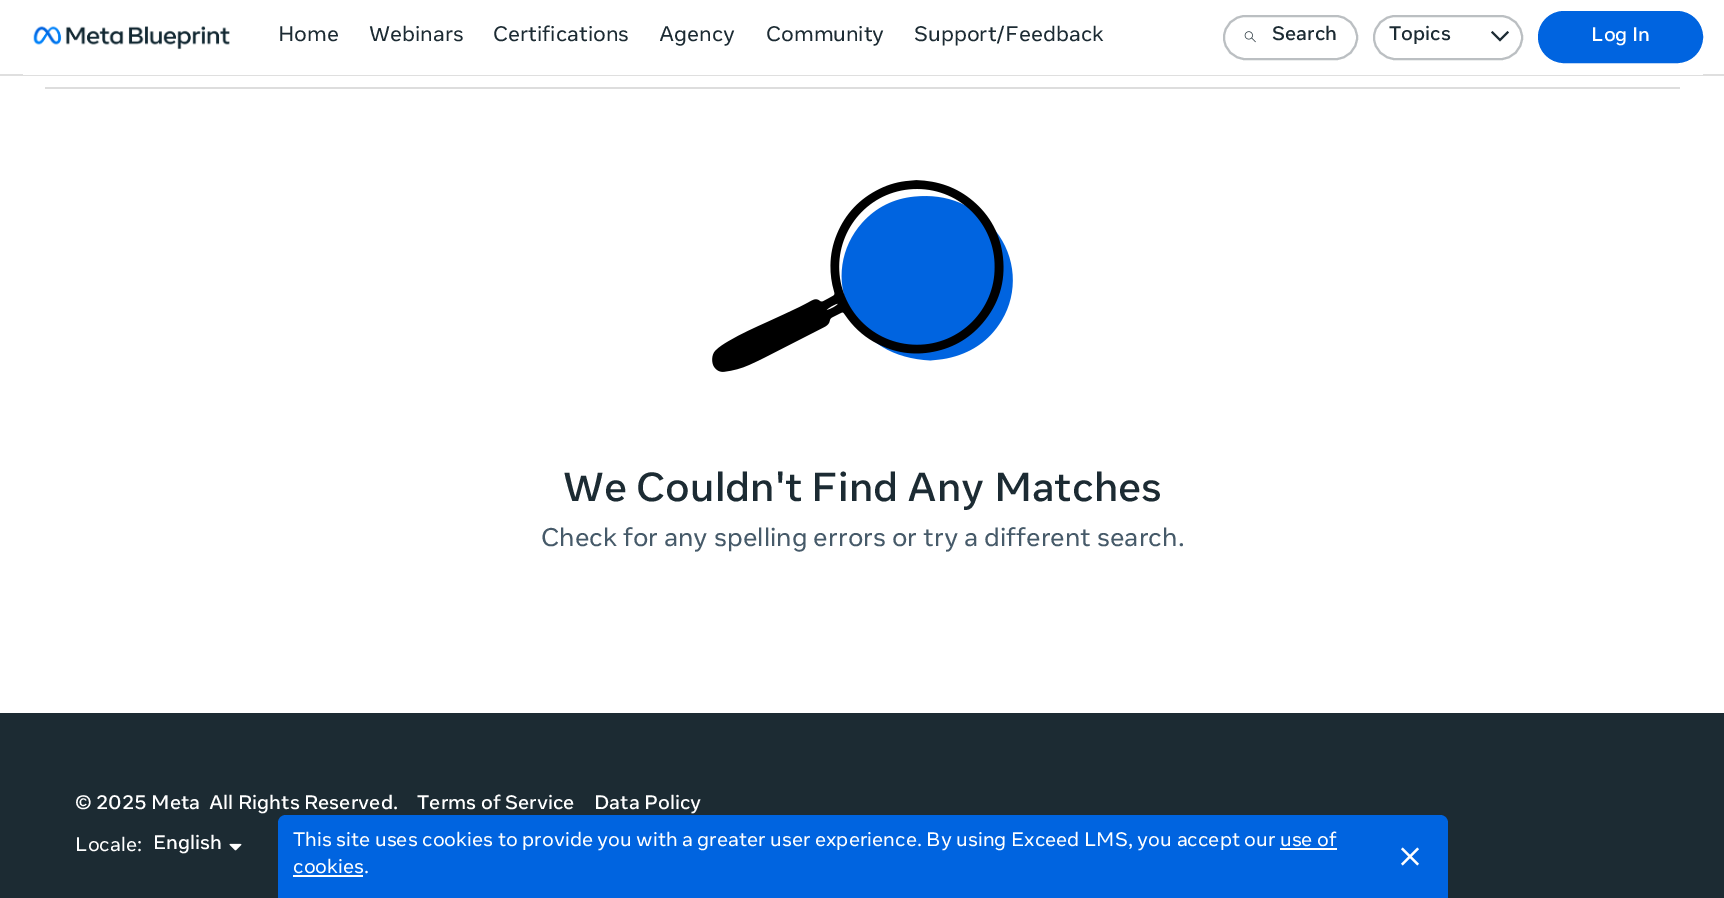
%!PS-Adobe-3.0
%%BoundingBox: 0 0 1724 898
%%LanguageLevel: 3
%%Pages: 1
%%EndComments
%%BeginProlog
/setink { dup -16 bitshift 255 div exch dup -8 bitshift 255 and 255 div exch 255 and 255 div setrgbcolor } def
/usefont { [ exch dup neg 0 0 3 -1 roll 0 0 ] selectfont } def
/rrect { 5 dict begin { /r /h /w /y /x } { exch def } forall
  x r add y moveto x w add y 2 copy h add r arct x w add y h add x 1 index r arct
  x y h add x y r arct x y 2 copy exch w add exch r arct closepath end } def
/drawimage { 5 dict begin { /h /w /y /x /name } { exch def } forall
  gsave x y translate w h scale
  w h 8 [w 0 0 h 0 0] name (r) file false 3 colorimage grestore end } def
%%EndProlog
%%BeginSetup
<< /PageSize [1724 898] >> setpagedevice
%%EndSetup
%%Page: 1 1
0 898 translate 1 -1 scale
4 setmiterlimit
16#FFFFFF setink
0 0 1724 898 rectfill
16#DFDFDF setink
0 74 1724 2 rectfill
16#FFFFFF setink
23 74 1680 1 rectfill
(img1.raw) 33 26 197 24 drawimage
/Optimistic-Regular 21 usefont
16#1C2B33 setink
[
    [(Home) 278 41]
    [(Webinars) 369 41]
    [(Certifications) 493 41]
    [(Agency) 659 41]
    [(Community) 766 41]
    [(Support/Feedback) 914 41]
] { aload pop moveto show } forall
16#BBBFC2 setink
2 setlinewidth
1224 16 133 43 21.5 rrect stroke
(img2.raw) 1244 31 12 12 drawimage
/Optimistic-Medium 19.5 usefont
16#1C2B33 setink
1272 40 moveto (Search) show
16#BBBFC2 setink
1374 16 148 43 21.5 rrect stroke
16#1C2B33 setink
1389 40 moveto (Topics) show
1492.5 31 moveto 1500 38.5 lineto 1507.5 31 lineto 1509 32.5 lineto 1500 41.5 lineto 1491 32.5 lineto closepath fill
16#0064E0 setink
1539 12 163 50 25 rrect gsave fill grestore
stroke
16#FFFFFF setink
1591 41 moveto (Log In) show
16#DDDDDD setink
45 87 1635 2 rectfill
(img3.raw) 712 180 301 192 drawimage
/Optimistic-Medium 40.5 usefont
16#1C2B33 setink
563 501 moveto (We Couldn't Find Any Matches) show
/Optimistic-Regular 25.5 usefont
16#465A69 setink
541 546 moveto (Check for any spelling errors or try a different search.) show
16#1C2B33 setink
0 713 1724 185 rectfill
/Optimistic-Medium 19.5 usefont
16#FFFFFF setink
[
    [(© 2025 Meta  All Rights Reserved.) 75 809]
    [(Terms of Service) 417 809]
    [(Data Policy) 594 809]
] { aload pop moveto show } forall
/Optimistic-Regular 19.5 usefont
75 851 moveto (Locale:) show
/Optimistic-Medium 19.5 usefont
153 849 moveto (English) show
(img4.raw) 229 843 13 8 drawimage
16#0064E0 setink
286 815 moveto 1440 815 lineto 1444.5 815 1448 818.5 1448 823 curveto 1448 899 lineto 278 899 lineto 278 823 lineto 278 818.5 281.5 815 286 815 curveto closepath fill
/Optimistic-Regular 19.5 usefont
16#FFFFFF setink
293 846 moveto (This site uses cookies to provide you with a greater user experience. By using Exceed LMS, you accept our use of) show
293 873 moveto (cookies.) show
1280 848 57 2 rectfill
293 875 70 2 rectfill
(img5.raw) 1401 847 18 19 drawimage
showpage
%%EOF
